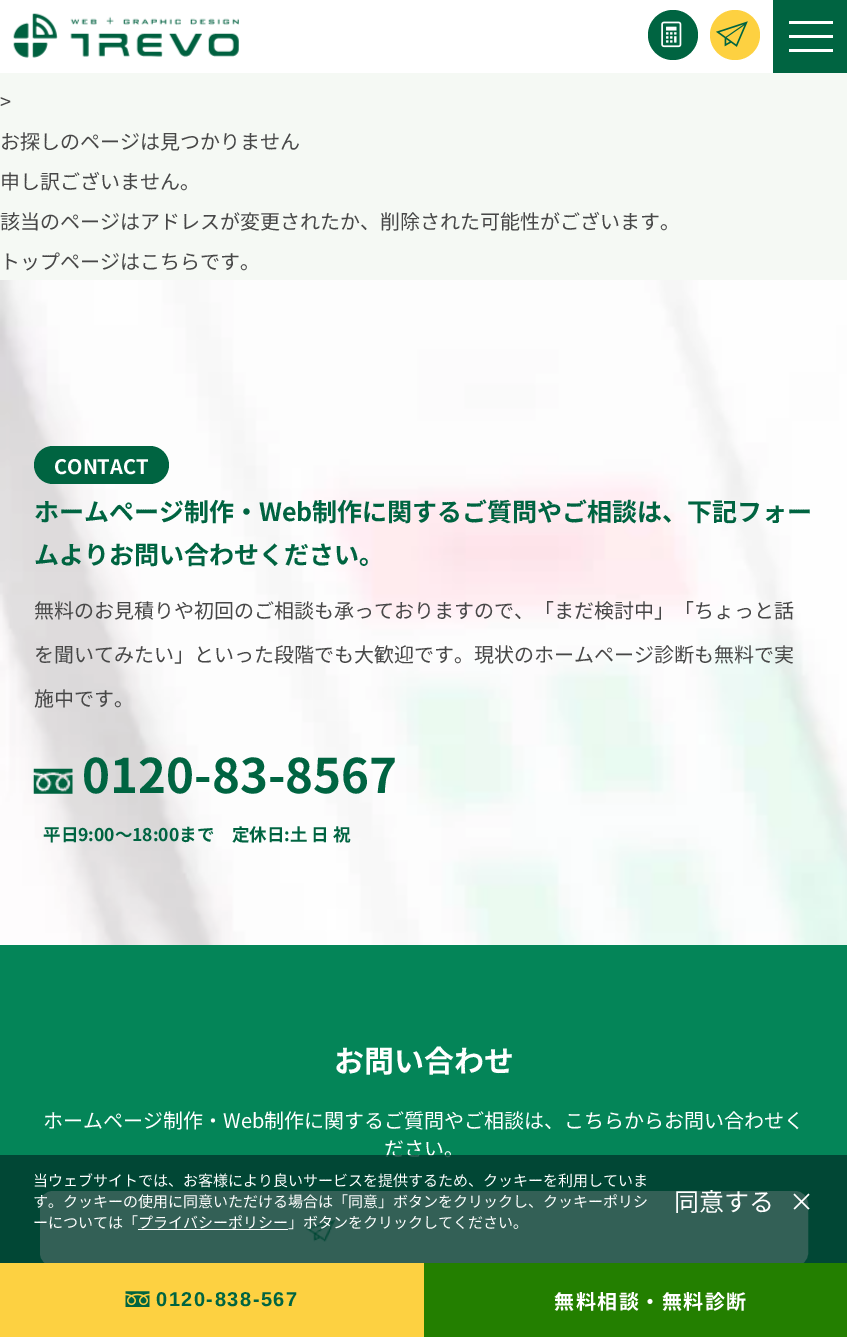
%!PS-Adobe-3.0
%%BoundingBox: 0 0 847 1337
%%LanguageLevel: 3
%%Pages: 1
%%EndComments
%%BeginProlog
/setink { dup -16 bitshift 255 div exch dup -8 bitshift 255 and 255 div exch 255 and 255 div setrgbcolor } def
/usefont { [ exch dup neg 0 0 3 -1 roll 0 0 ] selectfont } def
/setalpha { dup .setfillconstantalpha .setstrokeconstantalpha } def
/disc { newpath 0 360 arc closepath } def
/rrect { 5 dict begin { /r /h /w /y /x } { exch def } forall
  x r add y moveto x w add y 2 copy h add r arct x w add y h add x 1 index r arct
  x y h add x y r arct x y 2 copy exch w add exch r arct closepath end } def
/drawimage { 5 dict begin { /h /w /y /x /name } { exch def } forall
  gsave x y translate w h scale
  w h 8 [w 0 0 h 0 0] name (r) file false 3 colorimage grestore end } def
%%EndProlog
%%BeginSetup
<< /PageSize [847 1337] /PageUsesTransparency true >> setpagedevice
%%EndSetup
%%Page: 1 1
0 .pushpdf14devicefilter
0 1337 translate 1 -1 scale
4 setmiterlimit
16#F5F9F4 setink
0 0 847 1337 rectfill
16#FFFFFF setink
0 0 773 73 rectfill
(img1.raw) 13 13 226 45 drawimage
16#006441 setink
673 35 25 disc fill
(img2.raw) 661 21 21 27 drawimage
16#FDD141 setink
735 35 25 disc fill
(img3.raw) 716 21 32 26 drawimage
[
    [773 0 74 73 16#006441]
    [789 21 44 3 16#FFFFFF]
    [789 35 44 3 16#FFFFFF]
    [789 49 44 3 16#FFFFFF]
] { aload pop setink rectfill } forall
/NotoSansJP-Regular 20 usefont
16#474747 setink
[
    [(>) 0 109]
    [(お探しのページは見つかりません) 0 149]
    [(申し訳ございません。) 0 189]
    [(該当のページはアドレスが変更されたか、削除された可能性がございます。) 0 229]
    [(トップページはこちらです。) 0 269]
] { aload pop moveto show } forall
(img4.raw) 0 280 847 665 drawimage
16#006441 setink
34 446 135 38 19 rrect fill
/NotoSansJP-Bold 20 usefont
16#FFFFFF setink
54 474 moveto (CONTACT) show
/NotoSansJP-Bold 25 usefont
16#006441 setink
34 521 moveto (ホームページ制作・Web制作に関するご質問やご相談は、下記フォー) show
34 564 moveto (ムよりお問い合わせください。) show
/NotoSansJP-Regular 20 usefont
16#474747 setink
[
    [(無料のお見積りや初回のご相談も承っておりますので、「まだ検討中」「ちょっと話) 34 618]
    [(を聞いてみたい」といった段階でも大歓迎です。現状のホームページ診断も無料で実) 34 662]
    [(施中です。) 34 706]
] { aload pop moveto show } forall
(img5.raw) 33 768 40 26 drawimage
/NotoSansJP-Bold 47.5 usefont
16#006441 setink
82 793 moveto (0120-83-8567) show
/NotoSansJP-Bold 17.5 usefont
43 841 moveto (平日9:00～18:00まで　定休日:土 日 祝) show
16#048558 setink
0 945 847 318 rectfill
/NotoSansJP-Bold 30 usefont
16#FFFFFF setink
334 1072 moveto (お問い合わせ) show
/NotoSansJP-Regular 20 usefont
43 1128 moveto (ホームページ制作・Web制作に関するご質問やご相談は、こちらからお問い合わせく) show
384 1156 moveto (ださい。) show
41.5 1192.5 765 72 11.5 rrect gsave fill grestore
3 setlinewidth
stroke
(img6.raw) 306 1219 29 23 drawimage
0.8 setalpha
16#00382C setink
0 1155 847 108 rectfill
/NotoSansJP-Regular 15 usefont
1 setalpha
16#FFFFFF setink
[
    [(当ウェブサイトでは、お客様により良いサービスを提供するため、クッキーを利用していま) 33 1186]
    [(す。クッキーの使用に同意いただける場合は「同意」ボタンをクリックし、クッキーポリシ) 33 1207]
    [(ーについては「プライバシーポリシー」ボタンをクリックしてください。) 33 1228]
] { aload pop moveto show } forall
138 1229 150 1 rectfill
/NotoSansJP-Regular 25 usefont
674 1211 moveto (同意する) show
789 1211 moveto (×) show
16#FDD141 setink
0 1263 424 74 rectfill
(img7.raw) 125 1291 25 16 drawimage
/LiberationSans-Bold 20 usefont
16#006441 setink
156 1306 moveto 1.5 0 (0120-838-567) ashow
16#237F00 setink
424 1263 423 74 rectfill
/NotoSansJP-Bold 20 usefont
16#FFFFFF setink
554 1309 moveto 1.5 0 (無料相談・無料診断) ashow
.poppdf14devicefilter showpage
%%EOF
